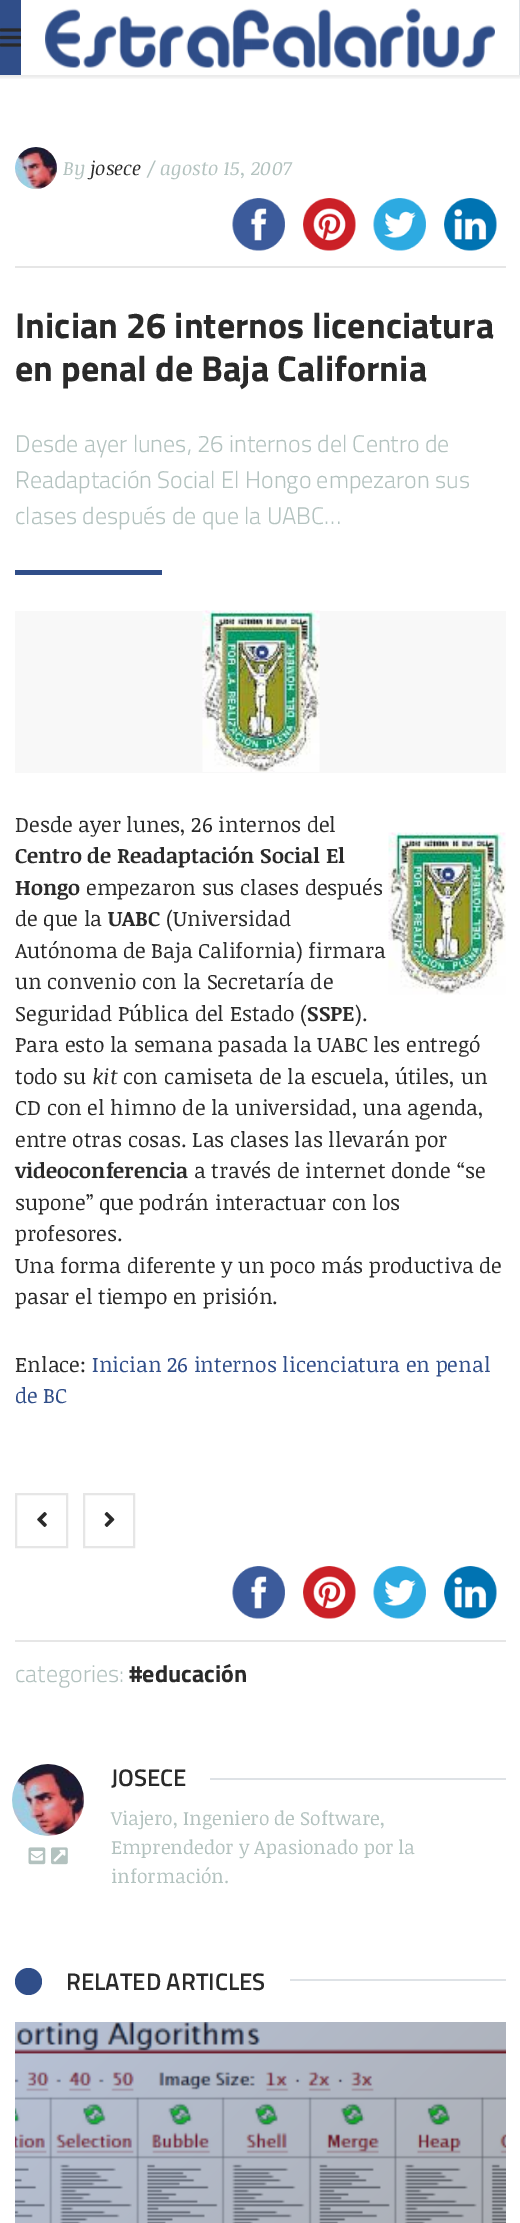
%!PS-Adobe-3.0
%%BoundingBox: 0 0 520 2223
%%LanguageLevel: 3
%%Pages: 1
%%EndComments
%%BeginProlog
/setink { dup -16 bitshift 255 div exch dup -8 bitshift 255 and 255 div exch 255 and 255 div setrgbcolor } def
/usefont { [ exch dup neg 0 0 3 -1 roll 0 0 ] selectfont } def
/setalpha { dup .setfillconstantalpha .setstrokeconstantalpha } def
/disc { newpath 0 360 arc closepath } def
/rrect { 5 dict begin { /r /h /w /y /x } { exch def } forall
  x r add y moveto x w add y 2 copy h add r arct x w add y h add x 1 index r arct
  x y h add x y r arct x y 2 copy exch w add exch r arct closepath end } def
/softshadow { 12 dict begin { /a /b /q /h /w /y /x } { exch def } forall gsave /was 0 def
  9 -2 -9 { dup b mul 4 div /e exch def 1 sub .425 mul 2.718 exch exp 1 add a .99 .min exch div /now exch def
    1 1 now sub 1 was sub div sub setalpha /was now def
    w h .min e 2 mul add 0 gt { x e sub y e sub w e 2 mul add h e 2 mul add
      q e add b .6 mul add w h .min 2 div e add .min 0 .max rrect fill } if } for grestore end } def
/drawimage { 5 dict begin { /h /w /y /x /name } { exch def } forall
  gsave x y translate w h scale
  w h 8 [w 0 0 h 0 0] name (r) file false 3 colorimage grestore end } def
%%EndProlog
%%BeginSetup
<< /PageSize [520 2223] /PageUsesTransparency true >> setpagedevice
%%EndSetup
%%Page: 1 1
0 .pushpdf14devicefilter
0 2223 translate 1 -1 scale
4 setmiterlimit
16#FFFFFF setink
0 0 520 2223 rectfill
gsave
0 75 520 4 rectclip
16#000000 setink
-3 -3 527 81 0 1.5 0.07 softshadow
grestore
16#304E89 setink
0 0 21 75 rectfill
(img1.raw) 0 28 21 19 drawimage
16#DEE2E6 setink
519 0 1 75 rectfill
(img2.raw) 45 8 450 60 drawimage
(img3.raw) 15 147 42 42 drawimage
/NoticiaText-Italic 19.25 usefont
16#B3C2BF setink
63 175 moveto (By) show
16#2A2A2A setink
90 175 moveto (josece) show
16#B3C2BF setink
147 175 moveto (/ agosto 15, 2007) show
(img4.raw) 232 198 53 53 drawimage
(img5.raw) 303 198 53 53 drawimage
(img6.raw) 373 198 53 53 drawimage
(img7.raw) 444 198 53 53 drawimage
16#E6E6E6 setink
15 266 491 2 rectfill
/TitilliumWeb-Bold 36 usefont
16#2A2A2A setink
15 338 moveto (Inician 26 internos licenciatura) show
15 381 moveto (en penal de Baja California) show
/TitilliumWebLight-Light 24 usefont
16#B3C2BF setink
[
    [(Desde ayer lunes, 26 internos del Centro de) 15 452]
    [(Readaptación Social El Hongo empezaron sus) 15 488]
    [(clases después de que la UABC…) 15 524]
] { aload pop moveto show } forall
16#304E89 setink
15 570 147 5 rectfill
16#F8F8F8 setink
15 611 491 162 rectfill
(img8.raw) 202 610 118 162 drawimage
/NoticiaText-Regular 21 usefont
16#2A2A2A setink
15 832 moveto (Desde ayer lunes, 26 internos del) show
/NoticiaText-Bold 21 usefont
15 863 moveto (Centro de Readaptación Social El) show
(img9.raw) 388 832 118 163 drawimage
15 895 moveto (Hongo) show
/NoticiaText-Regular 21 usefont
86 895 moveto (empezaron sus clases después) show
15 926 moveto (de que la) show
/NoticiaText-Bold 21 usefont
108 926 moveto (UABC) show
/NoticiaText-Regular 21 usefont
[
    [(\(Universidad) 166 926]
    [(Autónoma de Baja California\) firmara) 15 958]
    [(un convenio con la Secretaría de) 15 989]
    [(Seguridad Pública del Estado \() 15 1021]
] { aload pop moveto show } forall
/NoticiaText-Bold 21 usefont
307 1021 moveto (SSPE) show
/NoticiaText-Regular 21 usefont
[
    [(\).) 355 1021]
    [(Para esto la semana pasada la UABC les entregó) 15 1052]
    [(todo su) 15 1084]
] { aload pop moveto show } forall
/NoticiaText-Italic 21 usefont
92 1084 moveto (kit) show
/NoticiaText-Regular 21 usefont
[
    [(con camiseta de la escuela, útiles, un) 123 1084]
    [(CD con el himno de la universidad, una agenda,) 15 1115]
    [(entre otras cosas. Las clases las llevarán por) 15 1147]
] { aload pop moveto show } forall
/NoticiaText-Bold 21 usefont
15 1178 moveto (videoconferencia) show
/NoticiaText-Regular 21 usefont
[
    [(a través de internet donde “se) 194 1178]
    [(supone” que podrán interactuar con los) 15 1210]
    [(profesores.) 15 1241]
    [(Una forma diferente y un poco más productiva de) 15 1273]
    [(pasar el tiempo en prisión.) 15 1304]
    [(Enlace:) 15 1372]
] { aload pop moveto show } forall
16#304E89 setink
92 1372 moveto (Inician 26 internos licenciatura en penal) show
15 1403 moveto (de BC) show
16#E6E6E6 setink
2 setlinewidth
16 1494 51 53 rectstroke
(img10.raw) 37 1512 10 15 drawimage
84 1494 50 53 rectstroke
(img11.raw) 104 1512 11 15 drawimage
(img4.raw) 232 1566 53 53 drawimage
(img5.raw) 303 1566 53 53 drawimage
(img6.raw) 373 1566 53 53 drawimage
(img7.raw) 444 1566 53 53 drawimage
15 1640 491 2 rectfill
/TitilliumWebLight-Light 24 usefont
16#B3C2BF setink
15 1682 moveto (categories:) show
/TitilliumWeb-Bold 24 usefont
16#2A2A2A setink
129 1682 moveto (#educación) show
(img12.raw) 12 1764 72 72 drawimage
(img13.raw) 28 1847 18 18 drawimage
(img14.raw) 51 1847 17 18 drawimage
/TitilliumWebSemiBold-SemiBold 24 usefont
111 1786 moveto (JOSECE) show
16#DEE2E6 setink
210 1778 296 2 rectfill
/NoticiaText-Regular 19.25 usefont
16#B3C2BF setink
[
    [(Viajero, Ingeniero de Software,) 111 1825]
    [(Emprendedor y Apasionado por la) 111 1854]
    [(información.) 111 1883]
] { aload pop moveto show } forall
16#304E89 setink
28.5 1981.5 13.5 disc fill
/TitilliumWebSemiBold-SemiBold 24 usefont
16#2A2A2A setink
66 1990 moveto (RELATED ARTICLES) show
16#DEE2E6 setink
290 1979 216 2 rectfill
(img15.raw) 15 2022 491 201 drawimage
.poppdf14devicefilter showpage
%%EOF
